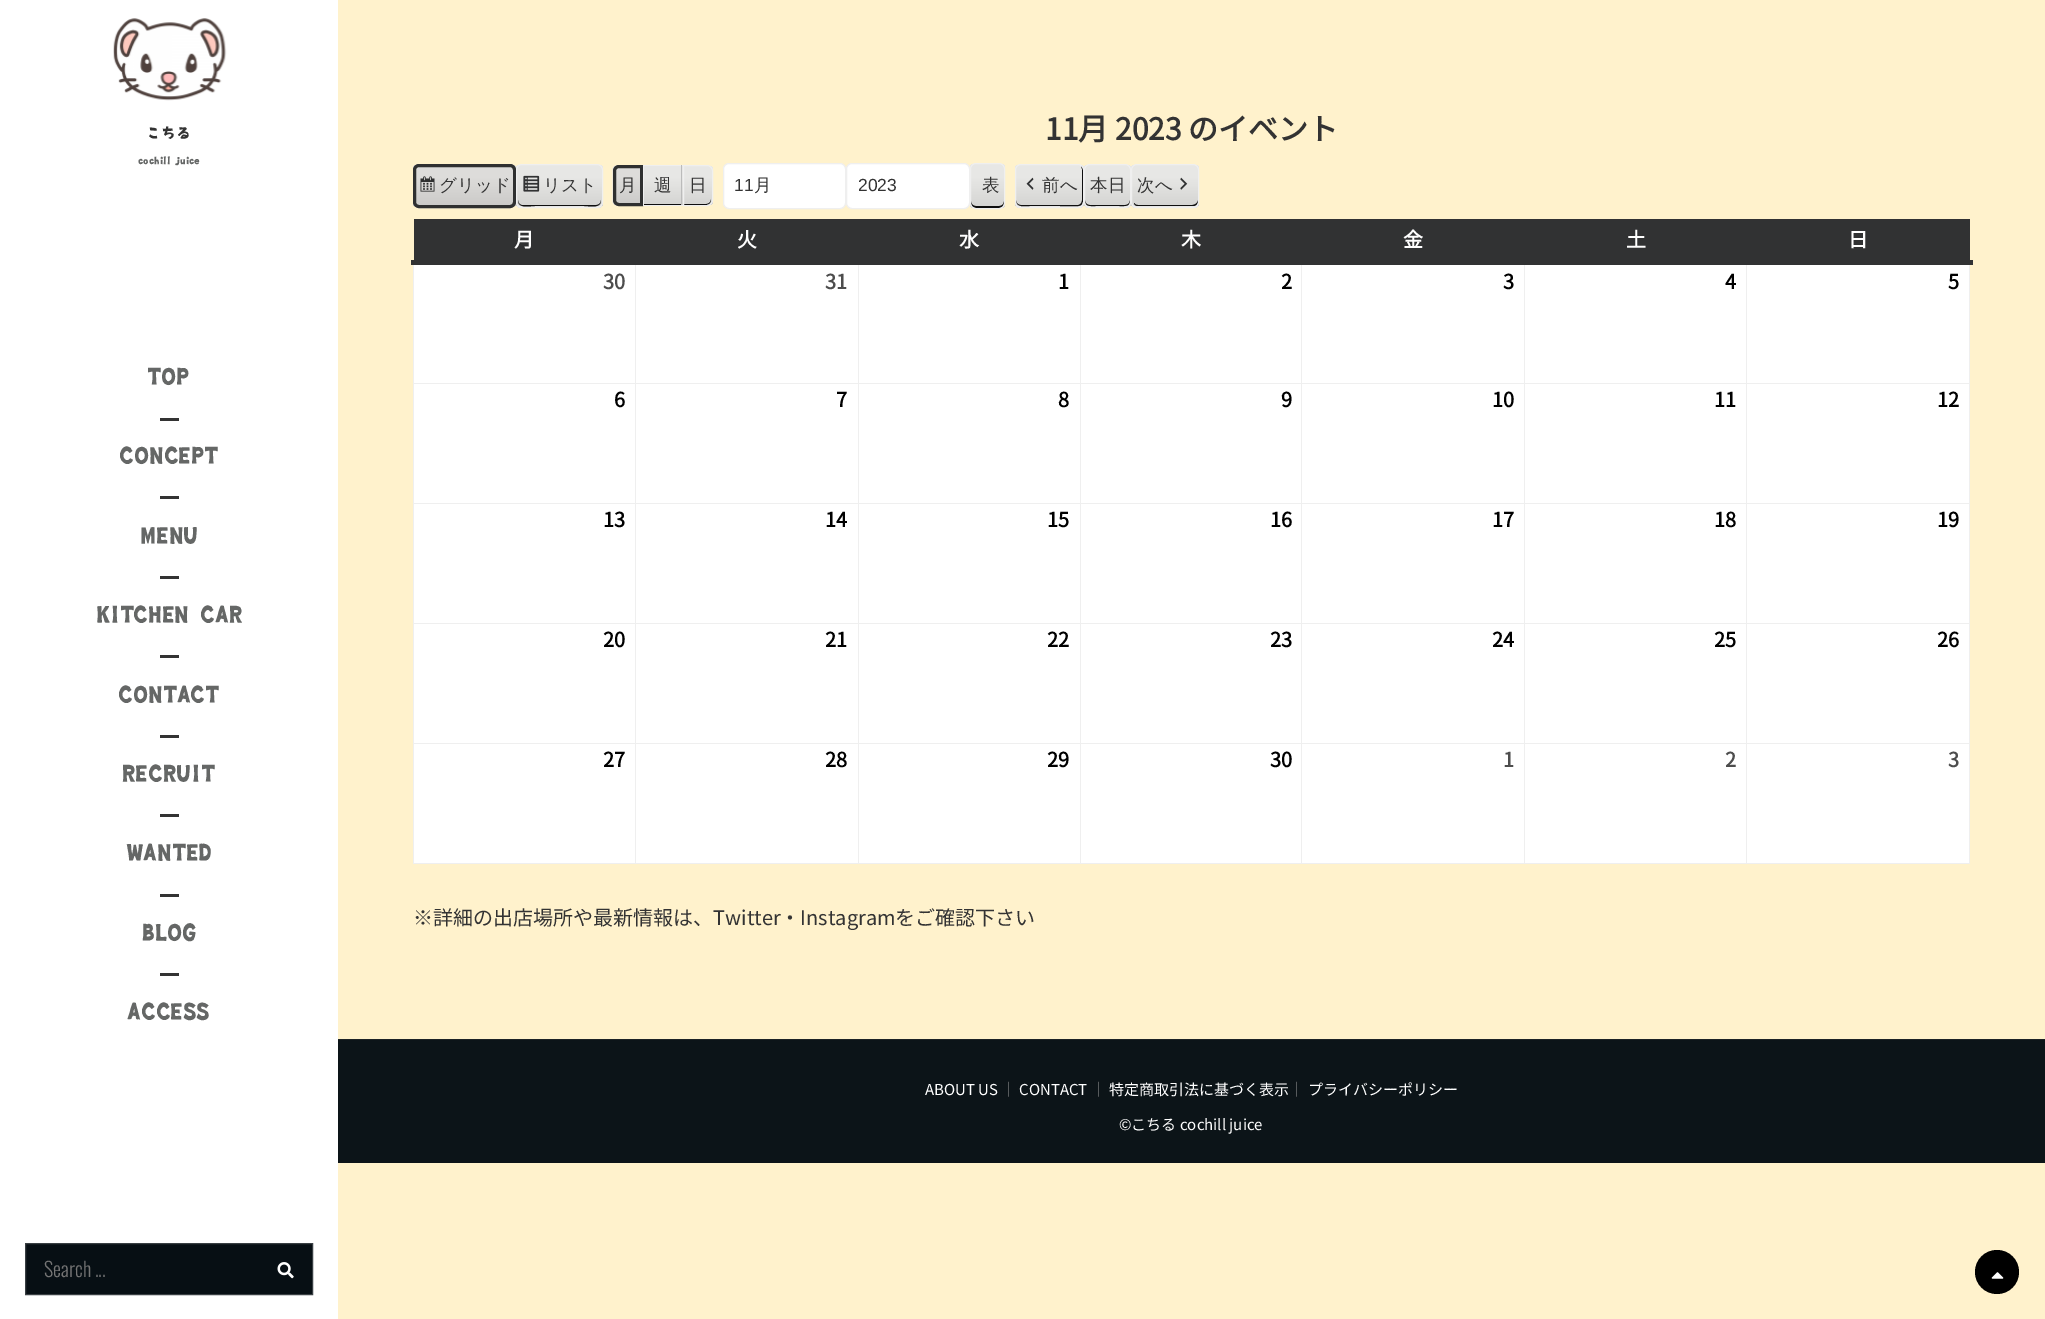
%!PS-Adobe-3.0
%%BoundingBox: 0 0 2045 1319
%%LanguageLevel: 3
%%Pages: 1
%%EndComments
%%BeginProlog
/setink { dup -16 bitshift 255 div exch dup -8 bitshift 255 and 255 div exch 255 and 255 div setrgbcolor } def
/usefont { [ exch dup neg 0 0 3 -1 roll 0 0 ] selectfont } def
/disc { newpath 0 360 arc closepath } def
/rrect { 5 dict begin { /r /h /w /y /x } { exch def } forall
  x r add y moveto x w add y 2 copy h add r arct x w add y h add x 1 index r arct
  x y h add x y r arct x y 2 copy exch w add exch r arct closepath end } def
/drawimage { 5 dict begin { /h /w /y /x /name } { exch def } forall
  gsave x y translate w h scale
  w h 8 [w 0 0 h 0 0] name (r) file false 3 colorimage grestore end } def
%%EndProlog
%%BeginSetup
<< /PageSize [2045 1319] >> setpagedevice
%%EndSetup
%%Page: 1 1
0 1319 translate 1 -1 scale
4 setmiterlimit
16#FFF2CC setink
0 0 2045 1319 rectfill
16#FFFFFF setink
0 0 338 1319 rectfill
(img1.raw) 113 18 114 83 drawimage
/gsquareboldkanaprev-Bold 15 usefont
16#333333 setink
146 138 moveto (こちる) show
/gsquareboldkanaprev-Bold 10 usefont
16#656766 setink
138 164 moveto (cochill juice) show
/gsquareboldkanaprev-Bold 22.5 usefont
147 384 moveto (TOP) show
16#333333 setink
160 418 19 3 rectfill
16#656766 setink
119 463 moveto (CONCEPT) show
16#333333 setink
160 496 19 3 rectfill
16#656766 setink
140 543 moveto (MENU) show
16#333333 setink
160 576 19 3 rectfill
16#656766 setink
96 622 moveto (KITCHEN CAR) show
16#333333 setink
160 655 19 3 rectfill
16#656766 setink
118 702 moveto (CONTACT) show
16#333333 setink
160 735 19 3 rectfill
16#656766 setink
122 781 moveto (RECRUIT) show
16#333333 setink
160 814 19 3 rectfill
16#656766 setink
126 860 moveto (WANTED) show
16#333333 setink
160 894 19 3 rectfill
16#656766 setink
142 940 moveto (BLOG) show
16#333333 setink
160 973 19 3 rectfill
16#656766 setink
127 1019 moveto (ACCESS) show
16#070F14 setink
25.5 1243.5 moveto 312.5 1243.5 lineto 312.5 1294.5 lineto 25.5 1294.5 lineto closepath gsave fill grestore
16#393F43 setink
stroke
/Oswald-Light 20 usefont
16#757575 setink
44 1277 moveto (Search ...) show
(img2.raw) 277 1262 17 17 drawimage
/NotoSansJP-Bold 30 usefont
16#333333 setink
1045 140 moveto (11月 2023 のイベント) show
gsave
413 164 103 44 6 rrect clip newpath
gsave 413 165 moveto 516 165 lineto 516 206 lineto 413 206 lineto closepath clip newpath
<< /ShadingType 2 /ColorSpace /DeviceRGB /Coords [464 206 464 165] /Extend [true true] /Function << /FunctionType 3 /Domain [0 1] /Functions [<< /FunctionType 2 /Domain [0 1] /C0 [0.796 0.792 0.784] /C1 [0.867 0.863 0.855] /N 1 >> << /FunctionType 2 /Domain [0 1] /C0 [0.867 0.863 0.855] /C1 [0.867 0.863 0.855] /N 1 >>] /Bounds [0.7] /Encode [0 1 0 1] >> >> shfill grestore
grestore
16#E3E3E3 setink
413.5 164.5 102 43 5.5 rrect stroke
(img3.raw) 420 176 15 16 drawimage
16#2F3030 setink
3 setlinewidth
414.5 165.5 100 41 4.5 rrect stroke
/WenQuanYiZenHei-Medium 17.5 usefont
16#333333 setink
439 191 moveto (グリッド) show
gsave
516 164 87 44 6 rrect clip newpath
gsave 516 165 moveto 603 165 lineto 603 206 lineto 516 206 lineto closepath clip newpath
<< /ShadingType 2 /ColorSpace /DeviceRGB /Coords [559 206 559 165] /Extend [true true] /Function << /FunctionType 3 /Domain [0 1] /Functions [<< /FunctionType 2 /Domain [0 1] /C0 [0.831 0.831 0.824] /C1 [0.906 0.906 0.898] /N 1 >> << /FunctionType 2 /Domain [0 1] /C0 [0.906 0.906 0.898] /C1 [0.906 0.906 0.898] /N 1 >>] /Bounds [0.7] /Encode [0 1 0 1] >> >> shfill grestore
gsave 516 206 moveto 603 206 lineto 603 208 lineto 516 208 lineto closepath clip newpath
<< /ShadingType 2 /ColorSpace /DeviceRGB /Coords [559 248 559 206] /Extend [true true] /Function << /FunctionType 3 /Domain [0 1] /Functions [<< /FunctionType 2 /Domain [0 1] /C0 [0.831 0.831 0.824] /C1 [0.906 0.906 0.898] /N 1 >> << /FunctionType 2 /Domain [0 1] /C0 [0.906 0.906 0.898] /C1 [0.906 0.906 0.898] /N 1 >>] /Bounds [0.7] /Encode [0 1 0 1] >> >> shfill grestore
grestore
16#0F0F0F setink
518 200 moveto 518 209 529 206 535 206 curveto 584 206 lineto 590 206 601 209 601 200 curveto 601 203 599 205 596 205 curveto 522 205 lineto 520 205 518 203 518 200 curveto closepath fill
16#EFEFEF setink
1 setlinewidth
516.5 164.5 86 43 5.5 rrect stroke
(img4.raw) 523 175 17 17 drawimage
16#333333 setink
543 191 moveto (リスト) show
gsave
619 165 moveto 643 165 lineto 643 206 lineto 619 206 lineto 615.5 206 613 203.5 613 200 curveto 613 171 lineto 613 167.5 615.5 165 619 165 curveto closepath clip newpath
gsave 613 166 moveto 640 166 lineto 640 205 lineto 613 205 lineto closepath clip newpath
<< /ShadingType 2 /ColorSpace /DeviceRGB /Coords [628 205 628 166] /Extend [true true] /Function << /FunctionType 3 /Domain [0 1] /Functions [<< /FunctionType 2 /Domain [0 1] /C0 [0.796 0.792 0.784] /C1 [0.867 0.863 0.855] /N 1 >> << /FunctionType 2 /Domain [0 1] /C0 [0.867 0.863 0.855] /C1 [0.867 0.863 0.855] /N 1 >>] /Bounds [0.7] /Encode [0 1 0 1] >> >> shfill grestore
grestore
16#E3E3E3 setink
619 165 moveto 617 165 615.5 165.5 614 166.5 curveto 615 167.5 lineto 616 166.5 617.5 166 619 166 curveto 641 166 lineto 641 166.5 lineto 642 165.5 lineto 642 165 lineto closepath 642 206 moveto 619 206 lineto 617 206 615.5 205.5 614.5 204.5 curveto 615.5 203.5 lineto 616 204.5 617.5 205 619 205 curveto 641 205 lineto closepath fill
612.5 169 moveto 614 166.5 lineto 615 167.5 lineto 614.5 168.5 614 169.5 614 171 curveto 614 200 lineto 614 201.5 614.5 202.5 615.5 203.5 curveto 614.5 204.5 lineto 612.5 202 lineto closepath fill
16#2F3030 setink
3 setlinewidth
619 166.5 moveto 641.5 166.5 lineto 641.5 204.5 lineto 619 204.5 lineto 616.5 204.5 614.5 202.5 614.5 200 curveto 614.5 171 lineto 614.5 168.5 616.5 166.5 619 166.5 curveto closepath stroke
16#333333 setink
619 191 moveto (月) show
gsave 644 166 moveto 683 166 lineto 683 205 lineto 644 205 lineto closepath clip newpath
<< /ShadingType 2 /ColorSpace /DeviceRGB /Coords [663 205 663 166] /Extend [true true] /Function << /FunctionType 3 /Domain [0 1] /Functions [<< /FunctionType 2 /Domain [0 1] /C0 [0.831 0.831 0.824] /C1 [0.906 0.906 0.898] /N 1 >> << /FunctionType 2 /Domain [0 1] /C0 [0.906 0.906 0.898] /C1 [0.906 0.906 0.898] /N 1 >>] /Bounds [0.7] /Encode [0 1 0 1] >> >> shfill grestore
[
    [644 204 37 1 16#0F0F0F]
    [643 165 40 1 16#EFEFEF]
    [681 165 1 41 16#BBBBBB]
    [643 205 40 1 16#EFEFEF]
    [643 165 1 41 16#EFEFEF]
] { aload pop setink rectfill } forall
16#333333 setink
654 191 moveto (週) show
gsave
683 165 moveto 707 165 lineto 710.5 165 713 167.5 713 171 curveto 713 200 lineto 713 203.5 710.5 206 707 206 curveto 683 206 lineto closepath clip newpath
gsave 684 166 moveto 713 166 lineto 713 205 lineto 684 205 lineto closepath clip newpath
<< /ShadingType 2 /ColorSpace /DeviceRGB /Coords [698 205 698 166] /Extend [true true] /Function << /FunctionType 3 /Domain [0 1] /Functions [<< /FunctionType 2 /Domain [0 1] /C0 [0.831 0.831 0.824] /C1 [0.906 0.906 0.898] /N 1 >> << /FunctionType 2 /Domain [0 1] /C0 [0.906 0.906 0.898] /C1 [0.906 0.906 0.898] /N 1 >>] /Bounds [0.7] /Encode [0 1 0 1] >> >> shfill grestore
grestore
16#0F0F0F setink
684 204 moveto 684 205 lineto 698.5 205 lineto 704 205 711 206.5 711 199 curveto 711 202 709 204 706 204 curveto closepath fill
16#EFEFEF setink
1 setlinewidth
683.5 165.5 moveto 707 165.5 lineto 710 165.5 712.5 168 712.5 171 curveto 712.5 200 lineto 712.5 203 710 205.5 707 205.5 curveto 683.5 205.5 lineto closepath stroke
16#333333 setink
689 191 moveto (日) show
16#FFFFFF setink
723.5 163.5 122 45 5.5 rrect gsave fill grestore
16#EFEFEF setink
stroke
/LiberationSans-Regular 17.5 usefont
16#333333 setink
734 191 moveto (11) show
/WenQuanYiZenHei-Medium 17.5 usefont
754 191 moveto (月) show
16#FFFFFF setink
846.5 163.5 123 45 5.5 rrect gsave fill grestore
16#EFEFEF setink
stroke
/LiberationSans-Regular 17.5 usefont
16#333333 setink
858 191 moveto (2023) show
gsave
970 163 35 46 6 rrect clip newpath
gsave 970 164 moveto 1005 164 lineto 1005 208 lineto 970 208 lineto closepath clip newpath
<< /ShadingType 2 /ColorSpace /DeviceRGB /Coords [988 208 988 164] /Extend [true true] /Function << /FunctionType 3 /Domain [0 1] /Functions [<< /FunctionType 2 /Domain [0 1] /C0 [0.831 0.831 0.824] /C1 [0.906 0.906 0.898] /N 1 >> << /FunctionType 2 /Domain [0 1] /C0 [0.906 0.906 0.898] /C1 [0.906 0.906 0.898] /N 1 >>] /Bounds [0.7] /Encode [0 1 0 1] >> >> shfill grestore
grestore
16#0F0F0F setink
971 201 moveto 971 208 973.5 208 980 208 curveto 995 208 lineto 1001.5 208 1004 208 1004 201 curveto 1004 204 1002 206 999 206 curveto 976 206 lineto 973 206 971 204 971 201 curveto closepath fill
16#EFEFEF setink
970.5 163.5 34 45 5.5 rrect stroke
/WenQuanYiZenHei-Medium 17.5 usefont
16#333333 setink
982 191 moveto 1 0 (表) ashow
gsave
1015 164 69 44 6 rrect clip newpath
gsave 1015 165 moveto 1084 165 lineto 1084 206 lineto 1015 206 lineto closepath clip newpath
<< /ShadingType 2 /ColorSpace /DeviceRGB /Coords [1049 206 1049 165] /Extend [true true] /Function << /FunctionType 3 /Domain [0 1] /Functions [<< /FunctionType 2 /Domain [0 1] /C0 [0.831 0.831 0.824] /C1 [0.906 0.906 0.898] /N 1 >> << /FunctionType 2 /Domain [0 1] /C0 [0.906 0.906 0.898] /C1 [0.906 0.906 0.898] /N 1 >>] /Bounds [0.7] /Encode [0 1 0 1] >> >> shfill grestore
gsave 1015 206 moveto 1084 206 lineto 1084 208 lineto 1015 208 lineto closepath clip newpath
<< /ShadingType 2 /ColorSpace /DeviceRGB /Coords [1049 248 1049 206] /Extend [true true] /Function << /FunctionType 3 /Domain [0 1] /Functions [<< /FunctionType 2 /Domain [0 1] /C0 [0.831 0.831 0.824] /C1 [0.906 0.906 0.898] /N 1 >> << /FunctionType 2 /Domain [0 1] /C0 [0.906 0.906 0.898] /C1 [0.906 0.906 0.898] /N 1 >>] /Bounds [0.7] /Encode [0 1 0 1] >> >> shfill grestore
grestore
16#0F0F0F setink
1016 200 moveto 1016 208 1025 206 1030 206 curveto 1059 206 lineto 1086 206 1083 210 1083 186 curveto 1083 175 lineto 1083 172 1084 169 1081 166 curveto 1082 169 lineto 1082 200 lineto 1082 203 1080 205 1078 205 curveto 1021 205 lineto 1018 205 1016 203 1016 200 curveto closepath fill
16#EFEFEF setink
1015.5 164.5 68 43 5.5 rrect stroke
(img5.raw) 1026 177 8 13 drawimage
16#333333 setink
1042 191 moveto (前へ) show
gsave
1084 164 47 44 6 rrect clip newpath
gsave 1084 165 moveto 1131 165 lineto 1131 206 lineto 1084 206 lineto closepath clip newpath
<< /ShadingType 2 /ColorSpace /DeviceRGB /Coords [1108 206 1108 165] /Extend [true true] /Function << /FunctionType 3 /Domain [0 1] /Functions [<< /FunctionType 2 /Domain [0 1] /C0 [0.831 0.831 0.824] /C1 [0.906 0.906 0.898] /N 1 >> << /FunctionType 2 /Domain [0 1] /C0 [0.906 0.906 0.898] /C1 [0.906 0.906 0.898] /N 1 >>] /Bounds [0.7] /Encode [0 1 0 1] >> >> shfill grestore
gsave 1084 206 moveto 1131 206 lineto 1131 208 lineto 1084 208 lineto closepath clip newpath
<< /ShadingType 2 /ColorSpace /DeviceRGB /Coords [1108 248 1108 206] /Extend [true true] /Function << /FunctionType 3 /Domain [0 1] /Functions [<< /FunctionType 2 /Domain [0 1] /C0 [0.831 0.831 0.824] /C1 [0.906 0.906 0.898] /N 1 >> << /FunctionType 2 /Domain [0 1] /C0 [0.906 0.906 0.898] /C1 [0.906 0.906 0.898] /N 1 >>] /Bounds [0.7] /Encode [0 1 0 1] >> >> shfill grestore
grestore
16#0F0F0F setink
1085 200 moveto 1085 207 1090 206 1096 206 curveto 1119 206 lineto 1125 206 1130 207 1130 200 curveto 1130 203 1128 205 1125 205 curveto 1090 205 lineto 1087 205 1085 203 1085 200 curveto closepath fill
16#EFEFEF setink
1084.5 164.5 46 43 5.5 rrect stroke
16#333333 setink
1090 191 moveto (本日) show
gsave
1131 164 68 44 6 rrect clip newpath
gsave 1131 165 moveto 1199 165 lineto 1199 206 lineto 1131 206 lineto closepath clip newpath
<< /ShadingType 2 /ColorSpace /DeviceRGB /Coords [1165 206 1165 165] /Extend [true true] /Function << /FunctionType 3 /Domain [0 1] /Functions [<< /FunctionType 2 /Domain [0 1] /C0 [0.831 0.831 0.824] /C1 [0.906 0.906 0.898] /N 1 >> << /FunctionType 2 /Domain [0 1] /C0 [0.906 0.906 0.898] /C1 [0.906 0.906 0.898] /N 1 >>] /Bounds [0.7] /Encode [0 1 0 1] >> >> shfill grestore
gsave 1131 206 moveto 1199 206 lineto 1199 208 lineto 1131 208 lineto closepath clip newpath
<< /ShadingType 2 /ColorSpace /DeviceRGB /Coords [1165 248 1165 206] /Extend [true true] /Function << /FunctionType 3 /Domain [0 1] /Functions [<< /FunctionType 2 /Domain [0 1] /C0 [0.831 0.831 0.824] /C1 [0.906 0.906 0.898] /N 1 >> << /FunctionType 2 /Domain [0 1] /C0 [0.906 0.906 0.898] /C1 [0.906 0.906 0.898] /N 1 >>] /Bounds [0.7] /Encode [0 1 0 1] >> >> shfill grestore
grestore
16#0F0F0F setink
1134 203 moveto 1134 205 1136 206 1138 206 curveto 1193 206 lineto 1196 206 1198 204 1198 201 curveto 1198 200 lineto 1198 203 1195 205 1192 205 curveto 1138 205 lineto 1136 205 1135 204 1134 203 curveto closepath fill
16#EFEFEF setink
1131.5 164.5 67 43 5.5 rrect stroke
16#333333 setink
1137 191 moveto (次へ) show
(img6.raw) 1180 177 8 13 drawimage
[
    [414 265 1555 598 16#FFFFFF]
    [1746 383 224 1 16#EFEFEF]
    [1746 503 224 1 16#EFEFEF]
    [1746 623 224 1 16#EFEFEF]
    [1746 743 224 1 16#EFEFEF]
    [1969 743 1 121 16#EFEFEF]
    [1746 863 224 1 16#EFEFEF]
    [1746 743 1 121 16#EFEFEF]
    [1524 743 224 1 16#EFEFEF]
    [1746 623 1 121 16#EFEFEF]
    [1524 623 224 1 16#EFEFEF]
    [1746 503 1 121 16#EFEFEF]
    [1524 503 224 1 16#EFEFEF]
    [1746 383 1 121 16#EFEFEF]
    [1524 383 224 1 16#EFEFEF]
    [1524 863 224 1 16#EFEFEF]
    [1524 743 1 121 16#EFEFEF]
    [1301 743 224 1 16#EFEFEF]
    [1524 623 1 121 16#EFEFEF]
    [1301 623 224 1 16#EFEFEF]
    [1524 503 1 121 16#EFEFEF]
    [1301 503 224 1 16#EFEFEF]
    [1524 383 1 121 16#EFEFEF]
    [1301 383 224 1 16#EFEFEF]
    [1301 863 224 1 16#EFEFEF]
    [1301 743 1 121 16#EFEFEF]
    [1080 743 223 1 16#EFEFEF]
    [1301 623 1 121 16#EFEFEF]
    [1080 623 223 1 16#EFEFEF]
    [1301 503 1 121 16#EFEFEF]
    [1080 503 223 1 16#EFEFEF]
    [1301 383 1 121 16#EFEFEF]
    [1080 383 223 1 16#EFEFEF]
    [1080 863 223 1 16#EFEFEF]
    [1080 743 1 121 16#EFEFEF]
    [858 743 223 1 16#EFEFEF]
    [1080 623 1 121 16#EFEFEF]
    [858 623 223 1 16#EFEFEF]
    [1080 503 1 121 16#EFEFEF]
    [858 503 223 1 16#EFEFEF]
    [1080 383 1 121 16#EFEFEF]
    [858 383 223 1 16#EFEFEF]
    [858 863 223 1 16#EFEFEF]
    [858 743 1 121 16#EFEFEF]
    [635 743 224 1 16#EFEFEF]
    [858 623 1 121 16#EFEFEF]
    [635 623 224 1 16#EFEFEF]
    [858 503 1 121 16#EFEFEF]
    [635 503 224 1 16#EFEFEF]
    [858 383 1 121 16#EFEFEF]
    [635 383 224 1 16#EFEFEF]
    [635 863 224 1 16#EFEFEF]
    [635 743 1 121 16#EFEFEF]
    [413 743 223 1 16#EFEFEF]
    [635 623 1 121 16#EFEFEF]
    [413 623 223 1 16#EFEFEF]
    [635 503 1 121 16#EFEFEF]
    [413 503 223 1 16#EFEFEF]
    [635 383 1 121 16#EFEFEF]
    [413 383 223 1 16#EFEFEF]
    [635 263 1 121 16#EFEFEF]
    [858 263 1 121 16#EFEFEF]
    [1080 263 1 121 16#EFEFEF]
    [1301 263 1 121 16#EFEFEF]
    [1524 263 1 121 16#EFEFEF]
    [1746 263 1 121 16#EFEFEF]
    [413 863 223 1 16#EFEFEF]
    [413 743 1 121 16#EFEFEF]
    [413 623 1 121 16#EFEFEF]
    [413 503 1 121 16#EFEFEF]
    [413 263 1 241 16#EFEFEF]
    [1969 623 1 121 16#EFEFEF]
    [1969 503 1 121 16#EFEFEF]
    [1969 263 1 241 16#EFEFEF]
    [411 260 1562 5 16#313233]
    [414 219 1556 41 16#313233]
] { aload pop setink rectfill } forall
/NotoSansJP-Bold 20 usefont
16#FFFFFF setink
[
    [(月) 514 247]
    [(火) 737 247]
    [(水) 959 247]
    [(木) 1181 247]
    [(金) 1403 247]
    [(土) 1626 247]
    [(日) 1848 247]
] { aload pop moveto show } forall
16#4D4D4D setink
603 289 moveto (30) show
825 289 moveto (31) show
16#000000 setink
[
    [(1) 1058 289]
    [(2) 1281 289]
    [(3) 1503 289]
    [(4) 1725 289]
    [(5) 1948 289]
    [(6) 614 407]
    [(7) 836 407]
    [(8) 1058 407]
    [(9) 1281 407]
    [(10) 1492 407]
    [(11) 1714 407]
    [(12) 1937 407]
    [(13) 603 527]
    [(14) 825 527]
    [(15) 1047 527]
    [(16) 1270 527]
    [(17) 1492 527]
    [(18) 1714 527]
    [(19) 1937 527]
    [(20) 603 647]
    [(21) 825 647]
    [(22) 1047 647]
    [(23) 1270 647]
    [(24) 1492 647]
    [(25) 1714 647]
    [(26) 1937 647]
    [(27) 603 767]
    [(28) 825 767]
    [(29) 1047 767]
    [(30) 1270 767]
] { aload pop moveto show } forall
16#4D4D4D setink
[
    [(1) 1503 767]
    [(2) 1725 767]
    [(3) 1948 767]
] { aload pop moveto show } forall
/NotoSansJP-Thin 20 usefont
16#333333 setink
413 925 moveto (※詳細の出店場所や最新情報は、Twitter・Instagramをご確認下さい) show
16#0C1418 setink
338 1040 1707 123 rectfill
16#1B2226 setink
338 1039 1707 1 rectfill
/NotoSansJP-Thin 15 usefont
16#FFFFFF setink
925 1095 moveto (ABOUT US) show
16#999999 setink
1001 1095 moveto (｜) show
16#FFFFFF setink
1019 1095 moveto (CONTACT) show
16#999999 setink
1091 1095 moveto (｜) show
16#FFFFFF setink
1109 1095 moveto (特定商取引法に基づく表示) show
16#999999 setink
1289 1095 moveto (｜) show
16#FFFFFF setink
1308 1095 moveto (プライバシーポリシー) show
1119 1130 moveto (©こちる cochill juice) show
16#000000 setink
1997 1272 22 disc fill
(img7.raw) 1991 1272 13 7 drawimage
showpage
%%EOF
